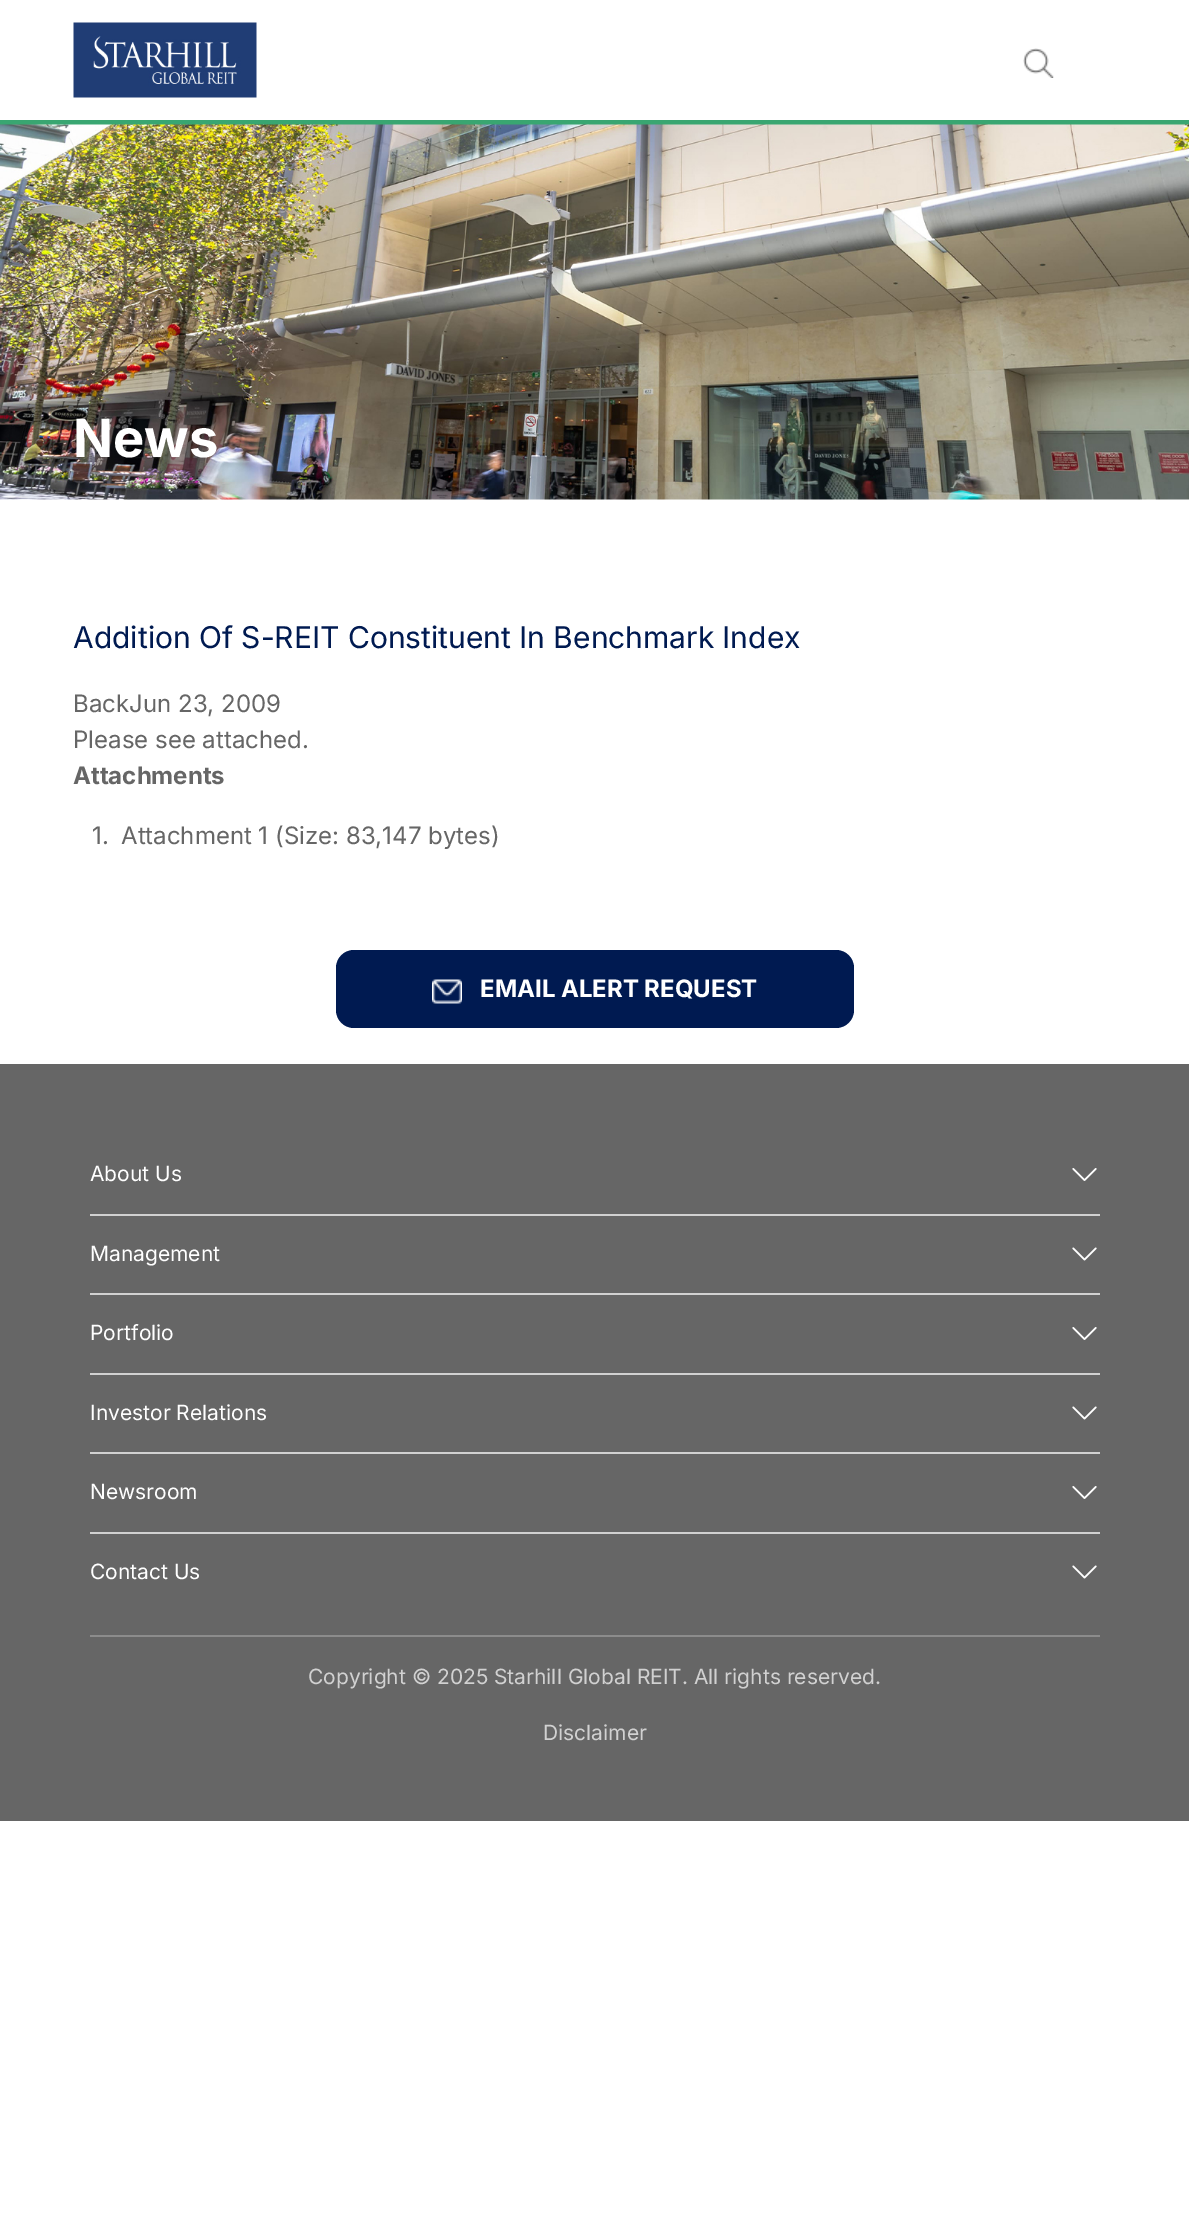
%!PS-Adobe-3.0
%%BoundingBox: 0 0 1189 2231
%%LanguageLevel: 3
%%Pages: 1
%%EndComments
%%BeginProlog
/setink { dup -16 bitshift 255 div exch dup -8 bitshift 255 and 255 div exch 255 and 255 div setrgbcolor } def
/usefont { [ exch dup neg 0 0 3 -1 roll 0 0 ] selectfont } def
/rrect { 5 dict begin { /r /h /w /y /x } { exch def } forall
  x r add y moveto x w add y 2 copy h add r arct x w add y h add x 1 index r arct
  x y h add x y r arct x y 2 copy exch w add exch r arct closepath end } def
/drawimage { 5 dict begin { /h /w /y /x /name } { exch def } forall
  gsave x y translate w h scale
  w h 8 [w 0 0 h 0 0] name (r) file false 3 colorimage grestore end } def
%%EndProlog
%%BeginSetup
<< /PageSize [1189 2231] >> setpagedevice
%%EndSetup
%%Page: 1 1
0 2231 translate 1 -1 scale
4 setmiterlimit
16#FFFFFF setink
0 0 1189 2231 rectfill
16#39A671 setink
0 120 1189 5 rectfill
(img1.raw) 73 22 184 76 drawimage
(img2.raw) 1023 48 31 30 drawimage
(img3.raw) 0 124 1189 376 drawimage
/Inter-Bold 52.5 usefont
16#FFFFFF setink
73 457 moveto (News) show
/Inter-Regular 30 usefont
16#001A51 setink
73 648 moveto (Addition Of S-REIT Constituent In Benchmark Index) show
/Inter-Regular 24 usefont
16#666666 setink
73 712 moveto (BackJun 23, 2009) show
73 748 moveto (Please see attached.) show
/Inter-Bold 24 usefont
73 784 moveto (Attachments) show
/Inter-Regular 24 usefont
92 844 moveto (1.) show
121 844 moveto (Attachment 1 \(Size: 83,147 bytes\)) show
16#001A51 setink
336 950 518 78 18 rrect fill
(img4.raw) 432 979 30 25 drawimage
/Inter-Bold 24 usefont
16#FFFFFF setink
480 997 moveto (EMAIL ALERT REQUEST) show
16#666666 setink
0 1064 1189 757 rectfill
16#D1D1D1 setink
90 1214 1010 2 rectfill
/Inter-Regular 21 usefont
16#FFFFFF setink
90 1181 moveto (About Us) show
(img5.raw) 1072 1168 25 13 drawimage
16#D1D1D1 setink
90 1293 1010 2 rectfill
16#FFFFFF setink
90 1261 moveto (Management) show
(img6.raw) 1072 1247 25 14 drawimage
16#D1D1D1 setink
90 1373 1010 2 rectfill
16#FFFFFF setink
90 1340 moveto (Portfolio) show
(img5.raw) 1072 1327 25 13 drawimage
16#D1D1D1 setink
90 1452 1010 2 rectfill
16#FFFFFF setink
90 1420 moveto (Investor Relations) show
(img6.raw) 1072 1406 25 14 drawimage
16#D1D1D1 setink
90 1532 1010 2 rectfill
16#FFFFFF setink
90 1499 moveto (Newsroom) show
(img5.raw) 1072 1486 25 13 drawimage
90 1579 moveto (Contact Us) show
(img6.raw) 1072 1565 25 14 drawimage
16#8C8C8C setink
90 1635 1010 2 rectfill
16#D1D1D1 setink
308 1684 moveto (Copyright © 2025 Starhill Global REIT. All rights reserved.) show
543 1740 moveto (Disclaimer) show
showpage
%%EOF
